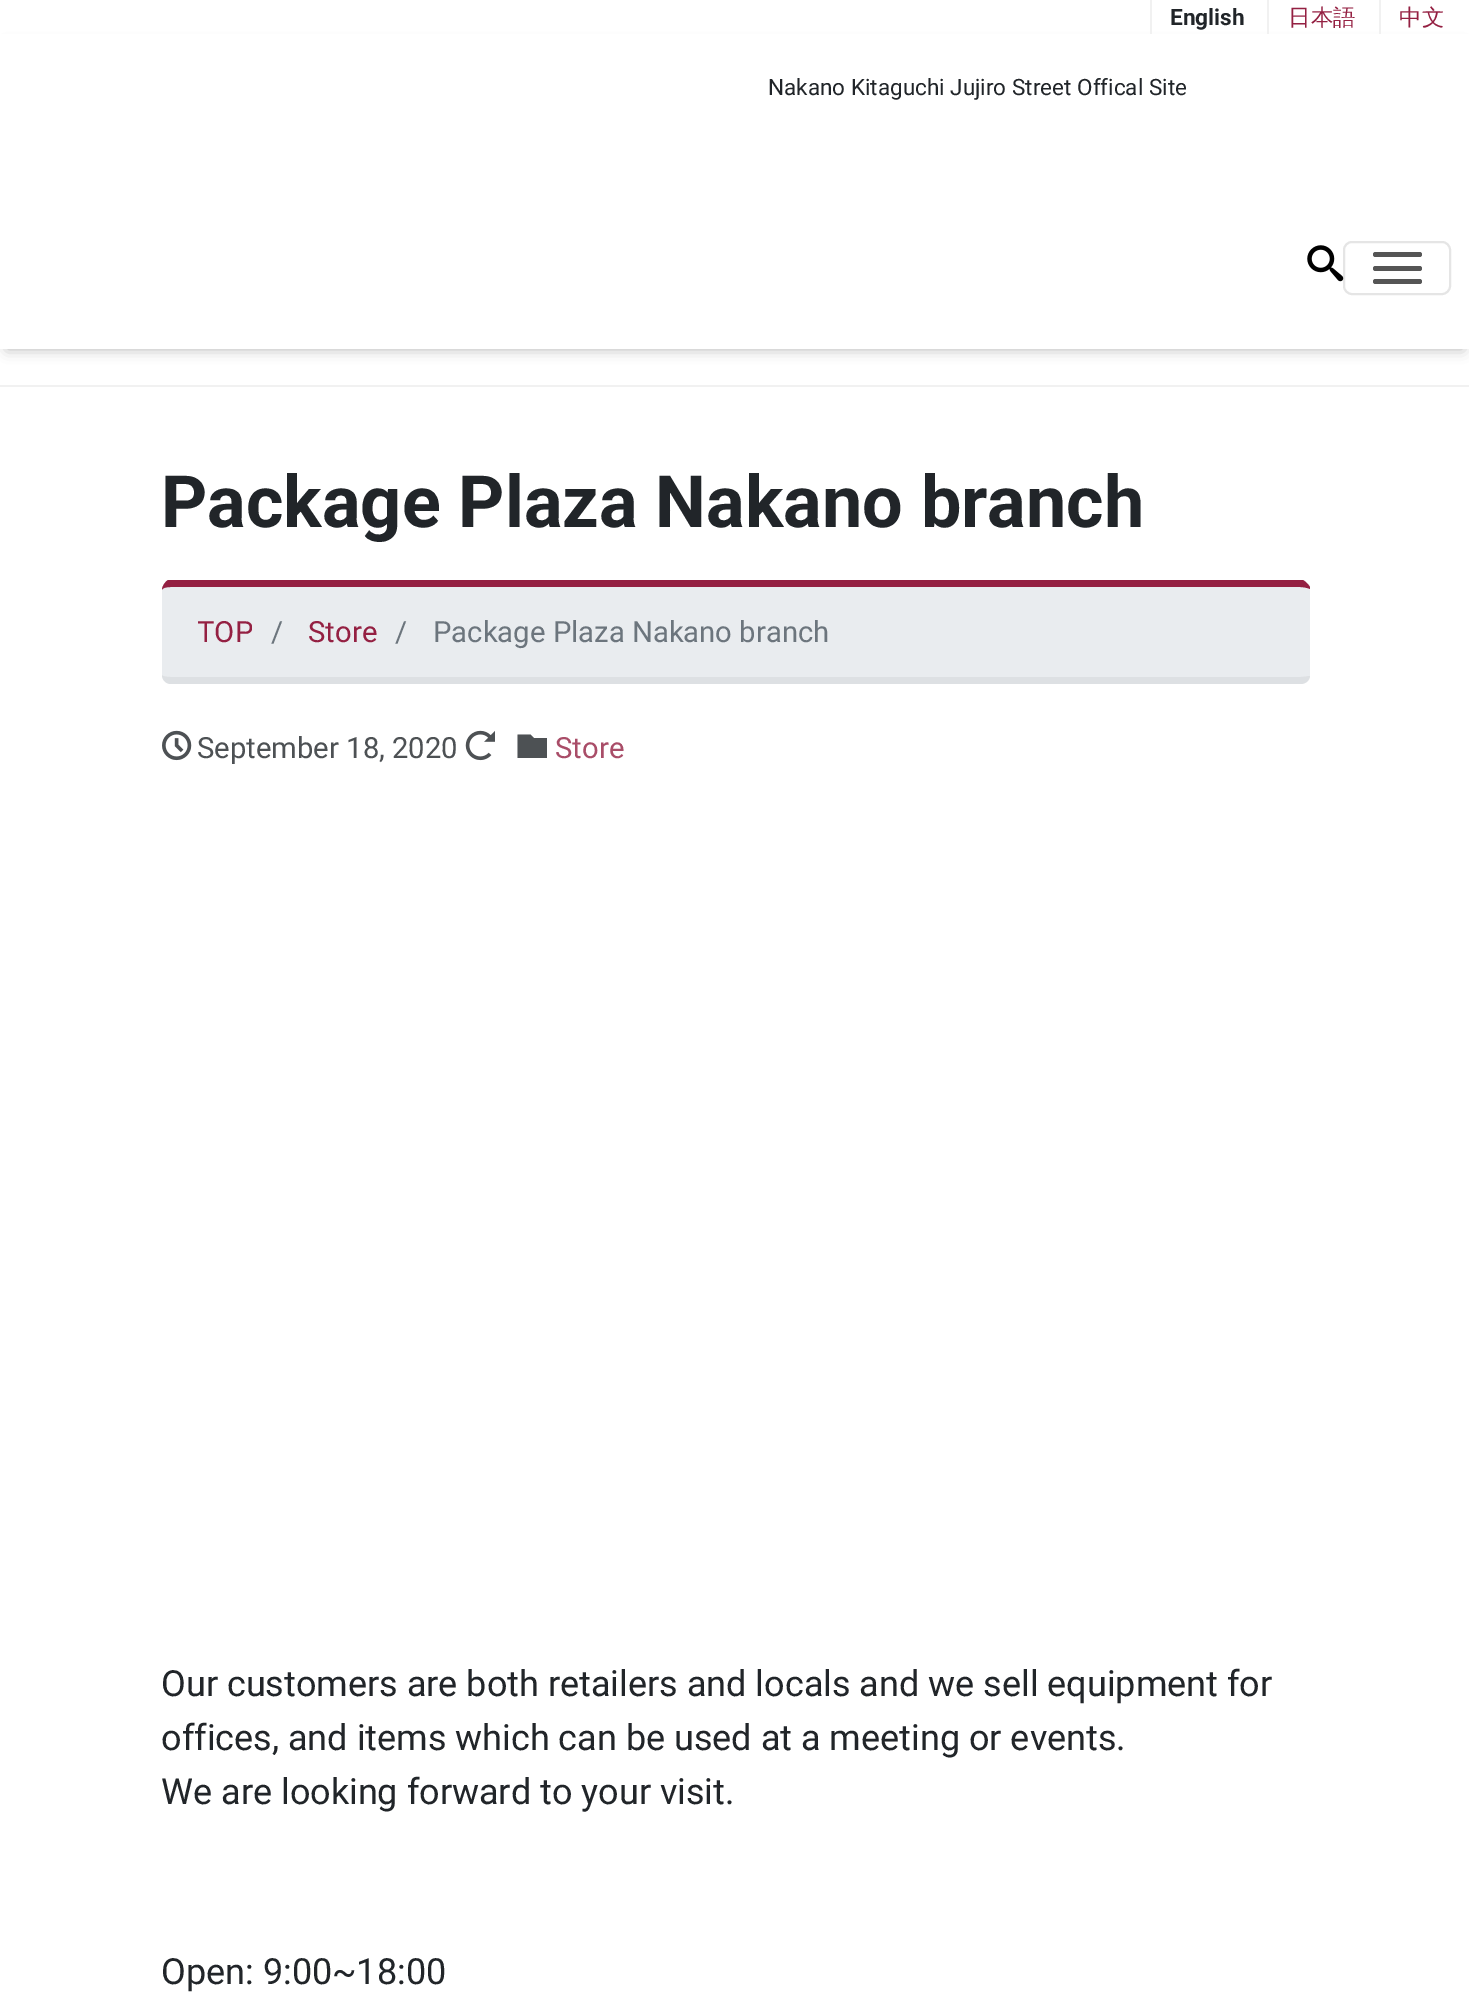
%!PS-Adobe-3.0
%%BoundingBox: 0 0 1469 2007
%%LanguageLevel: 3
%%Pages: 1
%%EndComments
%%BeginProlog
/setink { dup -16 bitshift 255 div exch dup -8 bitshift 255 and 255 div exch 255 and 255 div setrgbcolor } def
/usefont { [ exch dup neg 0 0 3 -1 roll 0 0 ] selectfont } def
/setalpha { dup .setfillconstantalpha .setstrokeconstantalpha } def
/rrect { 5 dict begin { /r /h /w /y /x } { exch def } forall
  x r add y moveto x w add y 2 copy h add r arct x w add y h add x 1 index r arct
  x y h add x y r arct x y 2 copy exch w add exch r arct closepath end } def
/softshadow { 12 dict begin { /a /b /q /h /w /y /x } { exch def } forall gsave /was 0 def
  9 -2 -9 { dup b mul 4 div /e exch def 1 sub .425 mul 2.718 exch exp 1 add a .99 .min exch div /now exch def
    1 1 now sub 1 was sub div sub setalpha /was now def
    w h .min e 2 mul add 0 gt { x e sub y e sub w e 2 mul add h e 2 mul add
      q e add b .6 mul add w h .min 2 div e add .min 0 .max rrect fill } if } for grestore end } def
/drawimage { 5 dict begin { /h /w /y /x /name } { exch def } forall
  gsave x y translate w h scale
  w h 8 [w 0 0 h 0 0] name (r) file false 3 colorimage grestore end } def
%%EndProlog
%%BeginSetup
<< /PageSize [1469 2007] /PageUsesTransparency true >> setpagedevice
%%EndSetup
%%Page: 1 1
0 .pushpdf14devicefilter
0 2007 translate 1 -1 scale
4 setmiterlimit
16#FFFFFF setink
0 0 1469 2007 rectfill
gsave
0 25 moveto 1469 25 lineto 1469 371 lineto 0 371 lineto closepath 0 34 moveto 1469 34 lineto 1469 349 lineto 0 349 lineto closepath eoclip newpath
16#000000 setink
7 47 1456 302 0 7 0.3 softshadow
grestore
16#F1F1F1 setink
1150 0 2 34 rectfill
/Roboto-Bold 22.5 usefont
16#212529 setink
1170 25 moveto (English) show
16#F1F1F1 setink
1267 0 2 34 rectfill
/WenQuanYiZenHei-Medium 22.5 usefont
16#942042 setink
1288 25 moveto (日本語) show
16#F1F1F1 setink
1379 0 2 34 rectfill
16#942042 setink
1399 25 moveto (中文) show
/Roboto-Regular 22.5 usefont
16#212529 setink
768 95 moveto (Nakano Kitaguchi Jujiro Street Offical Site) show
16#F1F1F1 setink
0 385 1469 2 rectfill
(img1.raw) 1307 245 37 37 drawimage
0.1 setalpha
16#000000 setink
2 setlinewidth
1344 242 106 52 8 rrect stroke
1 setalpha
16#555555 setink
1373 252 49 5 2.5 rrect fill
1373 266 49 5 2.5 rrect fill
1373 279 49 5 2.5 rrect fill
/Roboto-Bold 72 usefont
16#212529 setink
161 527 moveto (Package Plaza Nakano branch) show
16#E9ECEF setink
162 581 1148 103 9 rrect fill
16#942042 setink
171 587 moveto 166 587 162 588 162 590 curveto 162 586 165 582 168 580 curveto 1303 580 lineto 1306 582 1308 584 1310 587 curveto 1310 589 lineto 1308 588 1304 587 1300 587 curveto closepath fill
0.1 setalpha
16#777777 setink
1310 676 moveto 1310 681 1305 684 1300 684 curveto 171 684 lineto 166 684 162 680 162 675 curveto 162 676 166 677 171 677 curveto 1300 677 lineto 1304 677 1308 676 1310 676 curveto closepath fill
gsave
198 614 54 36 rectclip
/Roboto-Regular 29.25 usefont
1 setalpha
16#942042 setink
197 642 moveto (TOP) show
grestore
/Roboto-Regular 29.25 usefont
1 setalpha
16#6C757D setink
271 642 moveto (/) show
16#942042 setink
308 642 moveto (Store) show
16#6C757D setink
395 642 moveto (/) show
433 642 moveto (Package Plaza Nakano branch) show
(img2.raw) 162 730 30 31 drawimage
16#4D5154 setink
197 758 moveto (September 18, 2020) show
(img3.raw) 465 730 30 31 drawimage
530.5 734.5 moveto 534 738 lineto 547 738 lineto 547 758 lineto 517.5 758 lineto 517.5 734.5 lineto closepath fill
16#A94D68 setink
555 758 moveto (Store) show
/Roboto-Regular 36 usefont
16#212529 setink
[
    [(Our customers are both retailers and locals and we sell equipment for) 161 1696]
    [(offices, and items which can be used at a meeting or events.) 161 1750]
    [(We are looking forward to your visit.) 161 1804]
    [(Open: 9:00~18:00) 161 1984]
] { aload pop moveto show } forall
.poppdf14devicefilter showpage
%%EOF
